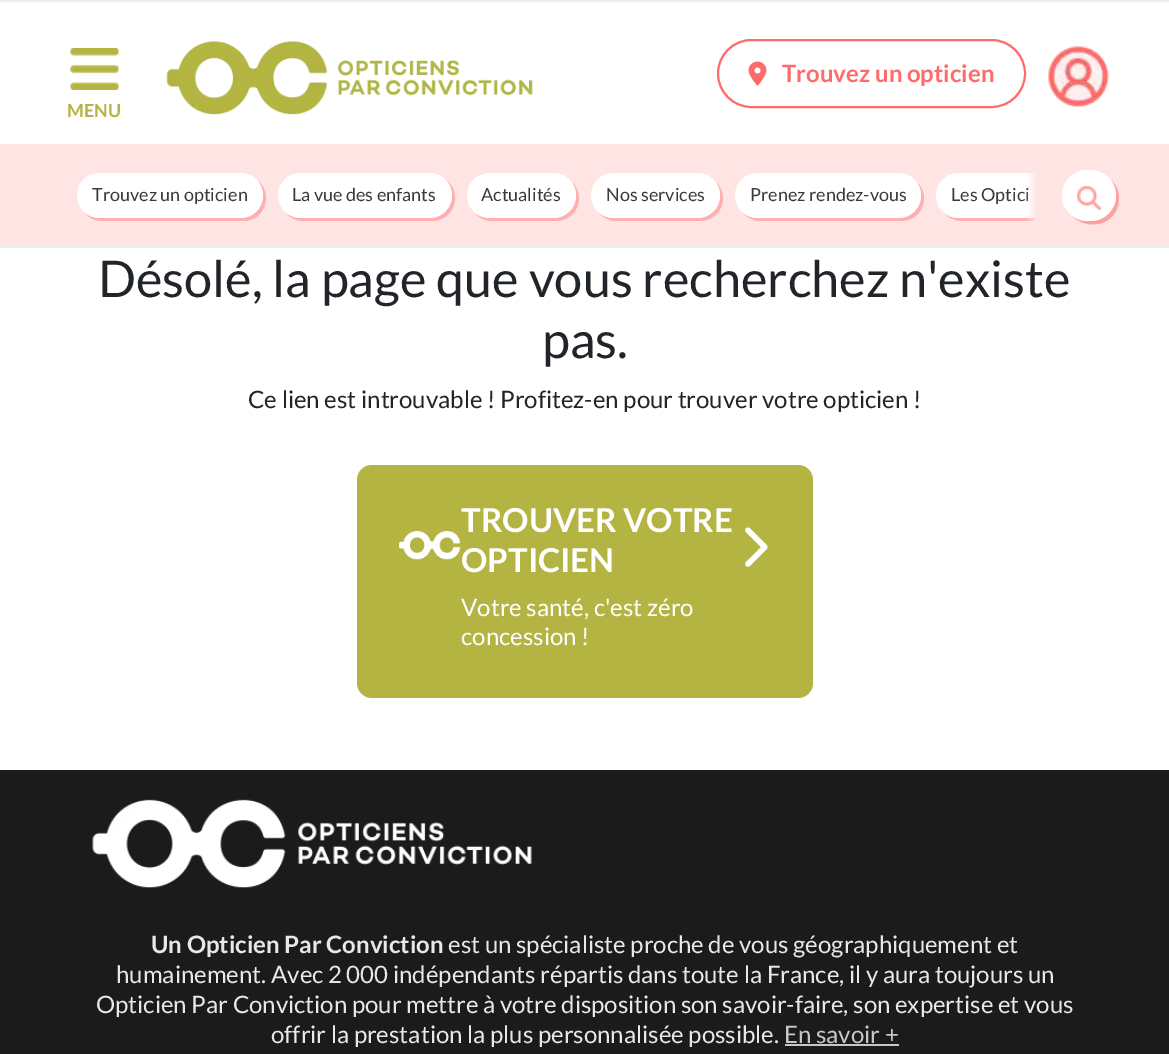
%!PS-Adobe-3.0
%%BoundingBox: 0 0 1169 1054
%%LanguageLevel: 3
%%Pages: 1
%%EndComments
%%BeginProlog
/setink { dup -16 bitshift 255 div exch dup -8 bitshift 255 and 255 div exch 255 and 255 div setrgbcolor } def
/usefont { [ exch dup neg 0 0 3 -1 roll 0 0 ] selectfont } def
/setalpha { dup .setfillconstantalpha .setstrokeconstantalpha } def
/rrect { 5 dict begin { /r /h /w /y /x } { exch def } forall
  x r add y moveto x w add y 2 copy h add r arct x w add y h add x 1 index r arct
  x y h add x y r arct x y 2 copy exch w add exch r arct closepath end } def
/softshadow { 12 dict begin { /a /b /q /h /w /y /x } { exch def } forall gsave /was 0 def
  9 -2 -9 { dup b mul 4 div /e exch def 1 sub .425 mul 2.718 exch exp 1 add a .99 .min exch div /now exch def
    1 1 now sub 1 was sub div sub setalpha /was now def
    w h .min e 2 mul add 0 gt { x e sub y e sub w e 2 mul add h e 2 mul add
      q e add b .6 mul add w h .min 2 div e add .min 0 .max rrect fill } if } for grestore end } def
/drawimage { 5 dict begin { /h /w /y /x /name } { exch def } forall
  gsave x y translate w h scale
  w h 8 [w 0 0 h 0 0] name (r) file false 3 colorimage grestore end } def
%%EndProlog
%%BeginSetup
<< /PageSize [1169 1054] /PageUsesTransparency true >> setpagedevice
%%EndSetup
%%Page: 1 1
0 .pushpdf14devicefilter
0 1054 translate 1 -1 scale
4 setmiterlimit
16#FFFFFF setink
0 0 1169 1054 rectfill
16#EEEEEE setink
0 0 1169 2 rectfill
0 246 1169 2 rectfill
(img1.raw) 166 41 367 74 drawimage
16#FF6B6A setink
2 setlinewidth
718 40 307 67 33.5 rrect stroke
(img2.raw) 748 61 19 25 drawimage
/Lato-Bold 24 usefont
782 82 moveto (Trouvez un opticien) show
(img3.raw) 1048 46 61 61 drawimage
(img4.raw) 70 48 49 42 drawimage
/Lato-Bold 18 usefont
16#B4B442 setink
67 117 moveto (MENU) show
16#FFE4E4 setink
0 144 1169 102 rectfill
16#FFAFAF setink
85 213 moveto 89 218 95 221 102 221 curveto 244 221 lineto 256 221 266 211 266 198 curveto 266 191 263 185 258 181 curveto 261 185 262 190 262 195 curveto 262 207 252 218 240 218 curveto 99 218 lineto 94 218 89 216 85 213 curveto closepath fill
16#FFFFFF setink
77 173 186 45 22.5 rrect fill
/Lato-Regular 18 usefont
16#373B3E setink
92 201 moveto (Trouvez un opticien) show
16#FFAFAF setink
286 213 moveto 290 218 296 221 304 221 curveto 432 221 lineto 445 221 455 211 455 198 curveto 455 191 452 185 447 181 curveto 450 185 452 190 452 195 curveto 452 207 441 218 429 218 curveto 300 218 lineto 295 218 290 216 286 213 curveto closepath fill
16#FFFFFF setink
278 173 174 45 22.5 rrect fill
16#373B3E setink
292 201 moveto (La vue des enfants) show
16#FFAFAF setink
475 213 moveto 479 218 485 221 492 221 curveto 556 221 lineto 569 221 579 211 579 198 curveto 579 192 576 186 572 182 curveto 575 186 576 190 576 195 curveto 576 207 566 218 554 218 curveto 489 218 lineto 484 218 479 216 475 213 curveto closepath fill
16#FFFFFF setink
467 173 109 45 22.5 rrect fill
16#373B3E setink
481 201 moveto (Actualités) show
16#FFAFAF setink
598 211 moveto 602 217 609 221 616 221 curveto 700 221 lineto 713 221 723 211 723 198 curveto 723 192 720 186 716 182 curveto 719 186 720 190 720 195 curveto 720 207 710 218 698 218 curveto 614 218 lineto 607 218 602 215 598 211 curveto closepath fill
16#FFFFFF setink
591 173 129 45 22.5 rrect fill
16#373B3E setink
606 201 moveto (Nos services) show
16#FFAFAF setink
742 211 moveto 746 217 753 221 760 221 curveto 902 221 lineto 914 221 924 211 924 198 curveto 924 192 921 186 917 182 curveto 920 186 921 190 921 195 curveto 921 207 911 218 898 218 curveto 758 218 lineto 751 218 746 215 742 211 curveto closepath fill
16#FFFFFF setink
735 173 186 45 22.5 rrect fill
16#373B3E setink
750 201 moveto (Prenez rendez-vous) show
gsave
69 150 966 90 rectclip
16#FFAFAF setink
943 211 moveto 947 217 954 221 962 221 curveto 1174 221 lineto 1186 221 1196 211 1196 198 curveto 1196 191 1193 185 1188 181 curveto 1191 185 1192 190 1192 195 curveto 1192 207 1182 218 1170 218 curveto 958 218 lineto 952 218 947 215 943 211 curveto closepath fill
grestore
16#FFFFFF setink
958.5 173 moveto 1035 173 lineto 1035 218 lineto 958.5 218 lineto 946 218 936 208 936 195.5 curveto 936 183 946 173 958.5 173 curveto closepath fill
16#373B3E setink
951 201 moveto (Les Optici) show
gsave
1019 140 moveto 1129 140 lineto 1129 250 lineto 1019 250 lineto closepath 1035 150 moveto 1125 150 lineto 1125 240 lineto 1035 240 lineto closepath eoclip newpath
16#FFE4E4 setink
1032 153 84 84 0 4 1 softshadow
grestore
16#FFA1A1 setink
1070 213 moveto 1078 225 1096 228 1108 220 curveto 1121 211 1123 191 1111 180 curveto 1119 192 1117 208 1105 216 curveto 1094 223 1079 222 1070 213 curveto closepath fill
16#FFFFFF setink
1062 170 54 51 25.5 rrect fill
(img5.raw) 1077 186 24 24 drawimage
/Lato-Regular 50.5 usefont
16#212529 setink
98 297 moveto (Désolé, la page que vous recherchez n'existe) show
542 358 moveto (pas.) show
/Lato-Regular 24 usefont
248 408 moveto (Ce lien est introuvable ! Profitez-en pour trouver votre opticien !) show
16#B4B442 setink
357 465 456 233 15 rrect fill
(img6.raw) 399 531 62 29 drawimage
/Lato-Bold 33 usefont
16#FFFFFF setink
461 532 moveto (TROUVER VOTRE) show
461 572 moveto (OPTICIEN) show
/Lato-Regular 24 usefont
461 616 moveto (Votre santé, c'est zéro) show
461 645 moveto (concession !) show
(img7.raw) 745 527 23 40 drawimage
16#1B1B1B setink
0 770 1169 284 rectfill
(img8.raw) 92 799 440 89 drawimage
/Lato-Bold 24 usefont
16#E8E8E8 setink
151 953 moveto (Un Opticien Par Conviction) show
/Lato-Regular 24 usefont
[
    [(est un spécialiste proche de vous géographiquement et) 448 953]
    [(humainement. Avec 2 000 indépendants répartis dans toute la France, il y aura toujours un) 116 983]
    [(Opticien Par Conviction pour mettre à votre disposition son savoir-faire, son expertise et vous) 96 1013]
    [(offrir la prestation la plus personnalisée possible.) 271 1043]
] { aload pop moveto show } forall
16#C7C7C7 setink
784 1043 moveto (En savoir +) show
785 1044 114 2 rectfill
.poppdf14devicefilter showpage
%%EOF
